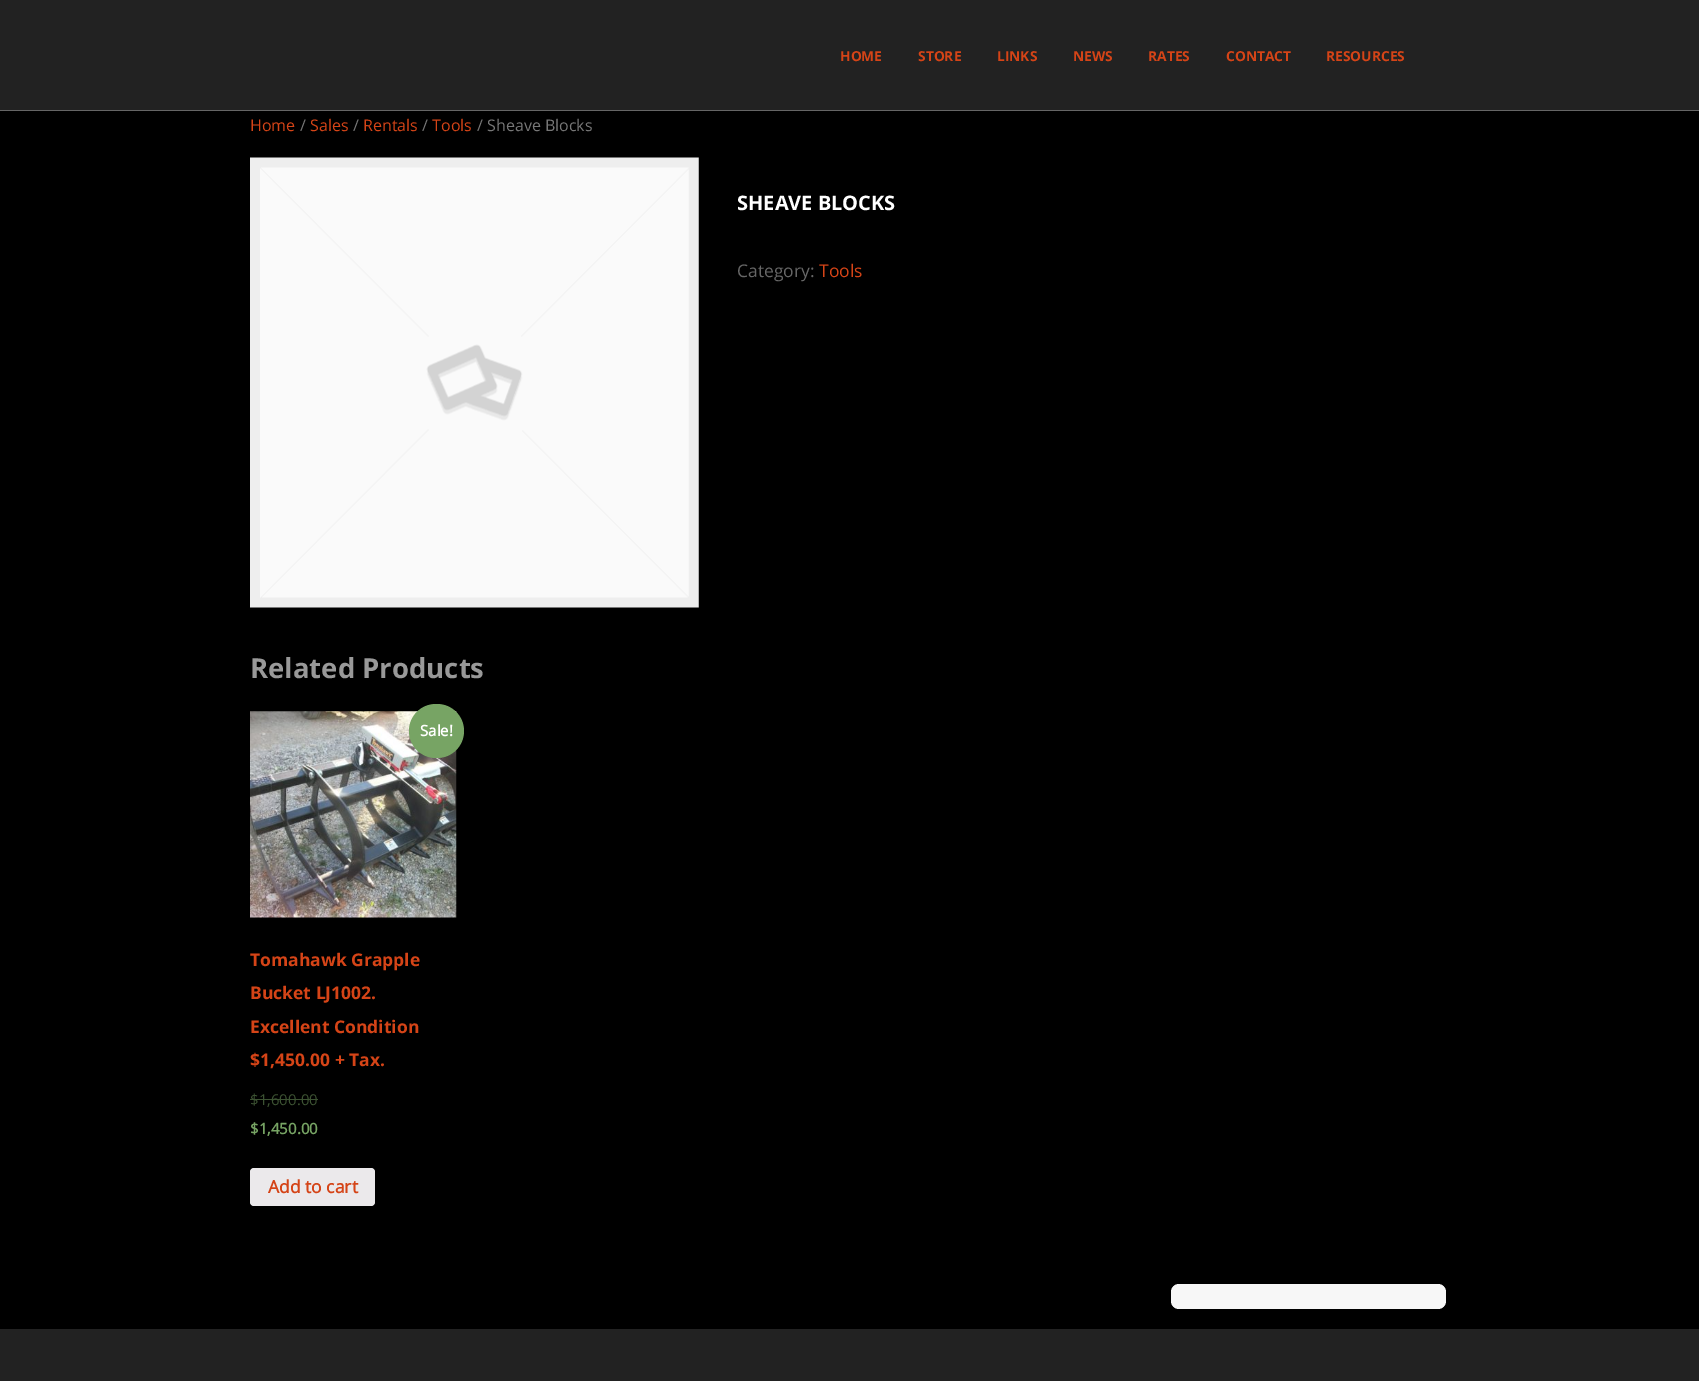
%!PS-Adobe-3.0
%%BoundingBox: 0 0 1699 1381
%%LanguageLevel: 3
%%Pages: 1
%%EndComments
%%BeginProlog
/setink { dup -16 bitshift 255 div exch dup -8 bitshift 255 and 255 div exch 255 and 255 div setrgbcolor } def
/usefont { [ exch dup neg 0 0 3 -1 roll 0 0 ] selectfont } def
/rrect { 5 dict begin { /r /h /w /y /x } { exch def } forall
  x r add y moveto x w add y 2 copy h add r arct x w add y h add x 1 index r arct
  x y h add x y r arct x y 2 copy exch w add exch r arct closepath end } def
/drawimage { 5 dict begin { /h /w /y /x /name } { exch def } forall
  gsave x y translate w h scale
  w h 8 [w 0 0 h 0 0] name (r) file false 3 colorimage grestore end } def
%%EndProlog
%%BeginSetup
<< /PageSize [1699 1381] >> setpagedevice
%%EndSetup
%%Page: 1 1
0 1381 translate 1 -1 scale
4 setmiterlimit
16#000000 setink
0 0 1699 1381 rectfill
16#222222 setink
0 0 1699 110 rectfill
16#666666 setink
0 110 1699 1 rectfill
/OpenSans-Bold 13.75 usefont
16#D54417 setink
[
    [(HOME) 840 61]
    [(STORE) 918 61]
    [(LINKS) 997 61]
    [(NEWS) 1073 61]
    [(RATES) 1148 61]
    [(CONTACT) 1226 61]
    [(RESOURCES) 1326 61]
] { aload pop moveto show } forall
/OpenSans-Regular 16 usefont
250 131 moveto (Home) show
16#777777 setink
300 131 moveto (/) show
16#D54417 setink
310 131 moveto (Sales) show
16#777777 setink
353 131 moveto (/) show
16#D54417 setink
363 131 moveto (Rentals) show
16#777777 setink
422 131 moveto (/) show
16#D54417 setink
432 131 moveto (Tools) show
16#777777 setink
477 131 moveto (/ Sheave Blocks) show
(img1.raw) 250 157 449 451 drawimage
/OpenSans-Bold 20 usefont
16#FFFFFF setink
737 210 moveto (SHEAVE BLOCKS) show
/OpenSans-Regular 17.5 usefont
16#666666 setink
737 277 moveto (Category:) show
16#D54417 setink
819 277 moveto (Tools) show
/OpenSans-Bold 27.5 usefont
16#999999 setink
250 678 moveto (Related Products) show
(img2.raw) 250 711 207 207 drawimage
16#77A464 setink
409 704 55 54 27 rrect fill
/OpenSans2-Bold 15 usefont
16#FFFFFF setink
420 736 moveto (Sale!) show
/OpenSans-Bold 17.5 usefont
16#D54417 setink
[
    [(Tomahawk Grapple) 250 966]
    [(Bucket LJ1002.) 250 999]
    [(Excellent Condition) 250 1033]
    [($1,450.00 + Tax.) 250 1066]
] { aload pop moveto show } forall
/OpenSans-Regular 15 usefont
16#3C5232 setink
250 1105 moveto ($1,600.00) show
250 1099 68 1 rectfill
/OpenSans2-Bold 15 usefont
16#77A464 setink
250 1134 moveto ($1,450.00) show
16#EBE9EB setink
250 1168 125 38 4 rrect fill
/OpenSans2-Bold 17.5 usefont
16#D54417 setink
268 1193 moveto (Add to cart) show
16#F7F7F7 setink
1171 1284 275 25 8 rrect fill
16#222222 setink
0 1329 1699 52 rectfill
showpage
%%EOF
